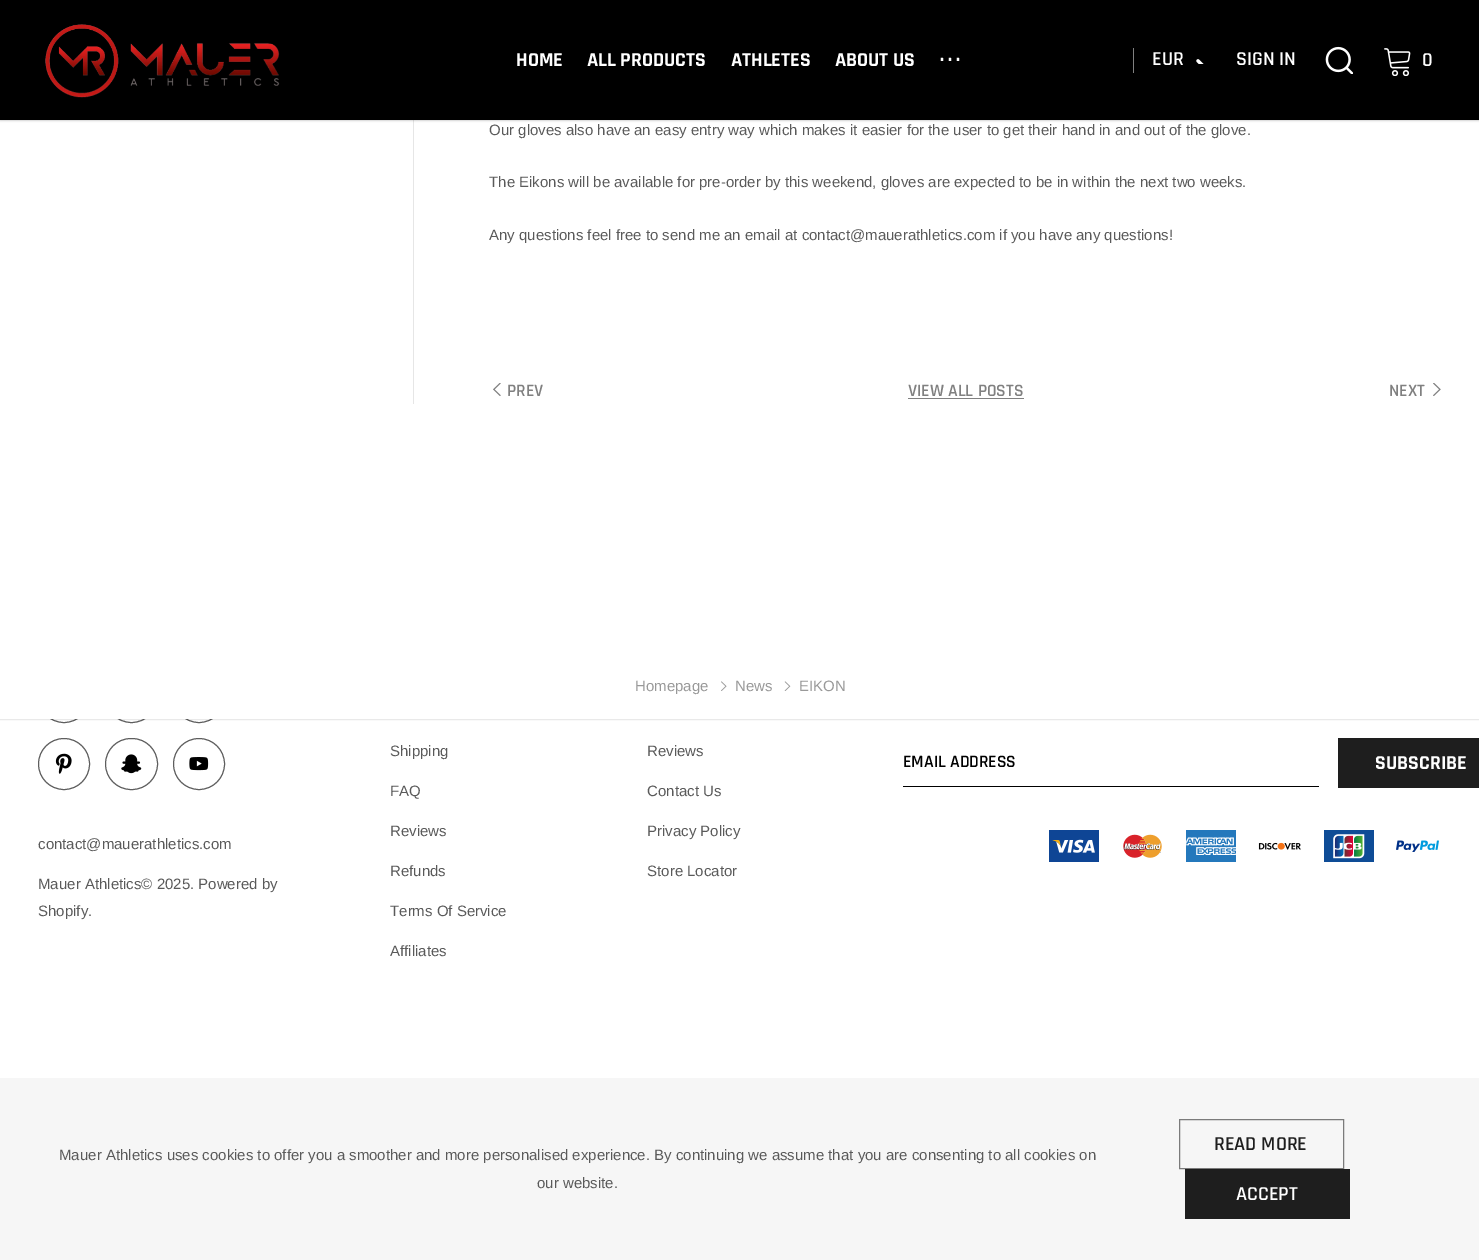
%!PS-Adobe-3.0
%%BoundingBox: 0 0 1479 1260
%%LanguageLevel: 3
%%Pages: 1
%%EndComments
%%BeginProlog
/setink { dup -16 bitshift 255 div exch dup -8 bitshift 255 and 255 div exch 255 and 255 div setrgbcolor } def
/usefont { [ exch dup neg 0 0 3 -1 roll 0 0 ] selectfont } def
/setalpha { dup .setfillconstantalpha .setstrokeconstantalpha } def
/disc { newpath 0 360 arc closepath } def
/rrect { 5 dict begin { /r /h /w /y /x } { exch def } forall
  x r add y moveto x w add y 2 copy h add r arct x w add y h add x 1 index r arct
  x y h add x y r arct x y 2 copy exch w add exch r arct closepath end } def
/softshadow { 12 dict begin { /a /b /q /h /w /y /x } { exch def } forall gsave /was 0 def
  9 -2 -9 { dup b mul 4 div /e exch def 1 sub .425 mul 2.718 exch exp 1 add a .99 .min exch div /now exch def
    1 1 now sub 1 was sub div sub setalpha /was now def
    w h .min e 2 mul add 0 gt { x e sub y e sub w e 2 mul add h e 2 mul add
      q e add b .6 mul add w h .min 2 div e add .min 0 .max rrect fill } if } for grestore end } def
/drawimage { 5 dict begin { /h /w /y /x /name } { exch def } forall
  gsave x y translate w h scale
  w h 8 [w 0 0 h 0 0] name (r) file false 3 colorimage grestore end } def
%%EndProlog
%%BeginSetup
<< /PageSize [1479 1260] /PageUsesTransparency true >> setpagedevice
%%EndSetup
%%Page: 1 1
0 .pushpdf14devicefilter
0 1260 translate 1 -1 scale
4 setmiterlimit
16#FFFFFF setink
0 0 1479 1260 rectfill
16#5E5E5E setink
38.5 670.5 51 52 25.5 rrect stroke
131.5 696.5 26 disc stroke
173.5 670.5 51 52 25.5 rrect stroke
16#000000 setink
-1 -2 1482 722 0 0.5 0.1 softshadow
16#FFFFFF setink
0 120 1479 599 rectfill
16#E6E6E6 setink
413 120 1 284 rectfill
16#000000 setink
0 1 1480 120 0 1 0.1 softshadow
0.06 setalpha
-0.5 -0.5 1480 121 rectstroke
1 setalpha
0 0 1479 120 rectfill
(img1.raw) 45 24 235 74 drawimage
/Rajdhani-Bold 20 usefont
16#FFFFFF setink
[
    [(HOME) 516 66]
    [(ALL PRODUCTS) 587 66]
    [(ATHLETES) 731 66]
    [(ABOUT US) 835 66]
] { aload pop moveto show } forall
940 61 moveto 4 0 (...) ashow
16#808080 setink
1133 48 1 25 rectfill
/Rajdhani-SemiBold 20 usefont
16#FFFFFF setink
1152 65 moveto (EUR) show
(img2.raw) 1196 59 8 5 drawimage
1236 65 moveto (SIGN IN) show
(img3.raw) 1325 46 28 28 drawimage
(img4.raw) 1384 48 27 28 drawimage
1422 66 moveto (0) show
/Arimo-Regular 15 usefont
16#5A5A5A setink
[
    [(Our gloves also have an easy entry way which makes it easier for the user to get their hand in and out of the glove.) 489 135]
    [(The Eikons will be available for pre-order by this weekend, gloves are expected to be in within the next two weeks.) 489 187]
    [(Any questions feel free to send me an email at contact@mauerathletics.com if you have any questions!) 489 240]
] { aload pop moveto show } forall
(img5.raw) 493 383 8 13 drawimage
/Rajdhani-SemiBold 17.5 usefont
16#808080 setink
507 396 moveto (PREV) show
908 396 moveto (VIEW ALL POSTS) show
908 398 116 1 rectfill
1389 396 moveto (NEXT) show
(img6.raw) 1433 383 8 13 drawimage
/Arimo-Regular 15 usefont
16#999999 setink
635 691 moveto (Homepage) show
(img7.raw) 721 681 6 10 drawimage
735 691 moveto (News) show
(img8.raw) 784 681 7 10 drawimage
799 691 moveto (EIKON) show
16#5A5A5A setink
[
    [(Shipping) 390 756]
    [(FAQ) 390 796]
    [(Reviews) 390 836]
    [(Refunds) 390 876]
    [(Terms Of Service) 390 916]
    [(Affiliates) 390 956]
    [(Reviews) 647 756]
    [(Contact Us) 647 796]
    [(Privacy Policy) 647 836]
    [(Store Locator) 647 876]
] { aload pop moveto show } forall
16#000000 setink
903 786 416 1 rectfill
/Rajdhani-SemiBold 17.5 usefont
903 767 moveto (EMAIL ADDRESS) show
16#1E1E1E setink
1338 738 141 50 rectfill
/Rajdhani-Bold 20 usefont
16#FFFFFF setink
1375 769 moveto (SUBSCRIBE) show
(img9.raw) 1049 830 50 32 drawimage
(img10.raw) 1123 834 39 24 drawimage
(img11.raw) 1186 830 50 32 drawimage
(img12.raw) 1258 842 43 8 drawimage
(img13.raw) 1324 830 50 32 drawimage
(img14.raw) 1396 840 43 12 drawimage
16#5E5E5E setink
64 764 25.5 disc stroke
(img15.raw) 55 753 17 21 drawimage
105.5 738.5 52 51 25.5 rrect stroke
(img16.raw) 121 754 21 20 drawimage
199 764 25.5 disc stroke
(img17.raw) 189 757 20 14 drawimage
/Arimo-Regular 15 usefont
16#5A5A5A setink
[
    [(contact@mauerathletics.com) 38 849]
    [(Mauer Athletics© 2025. Powered by) 38 889]
    [(Shopify.) 38 916]
] { aload pop moveto show } forall
16#F6F6F6 setink
0 1078 1479 182 rectfill
16#5A5A5A setink
59 1160 moveto (Mauer Athletics uses cookies to offer you a smoother and more personalised experience. By continuing we assume that you are consenting to all cookies on) show
537 1188 moveto (our website.) show
16#7B7B7B setink
1179.5 1119.5 164 49 rectstroke
/Rajdhani-SemiBold 20 usefont
16#1E1E1E setink
1214 1150 moveto (READ MORE) show
1185 1169 165 50 rectfill
16#FFFFFF setink
1236 1200 moveto (ACCEPT) show
.poppdf14devicefilter showpage
%%EOF
